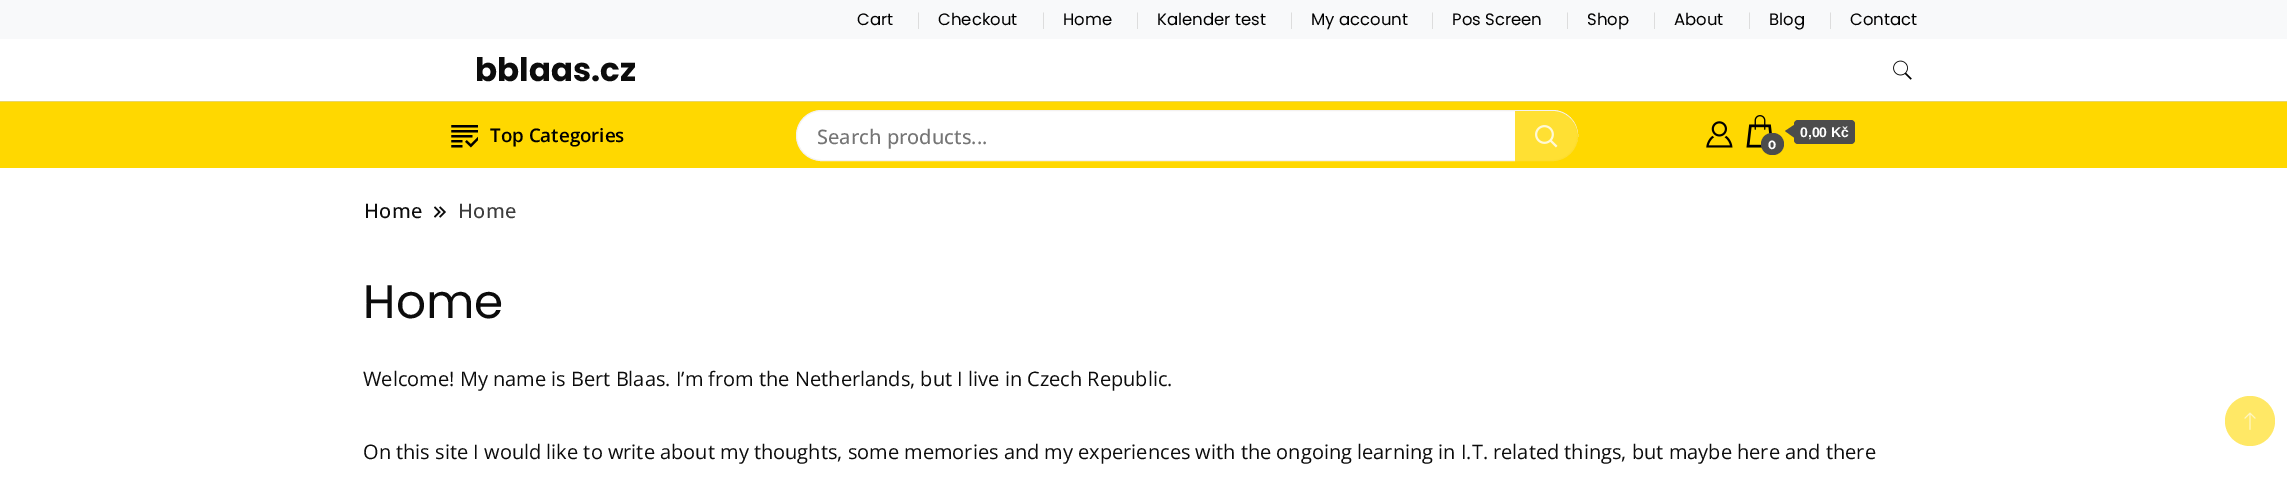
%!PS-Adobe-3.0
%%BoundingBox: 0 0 2287 477
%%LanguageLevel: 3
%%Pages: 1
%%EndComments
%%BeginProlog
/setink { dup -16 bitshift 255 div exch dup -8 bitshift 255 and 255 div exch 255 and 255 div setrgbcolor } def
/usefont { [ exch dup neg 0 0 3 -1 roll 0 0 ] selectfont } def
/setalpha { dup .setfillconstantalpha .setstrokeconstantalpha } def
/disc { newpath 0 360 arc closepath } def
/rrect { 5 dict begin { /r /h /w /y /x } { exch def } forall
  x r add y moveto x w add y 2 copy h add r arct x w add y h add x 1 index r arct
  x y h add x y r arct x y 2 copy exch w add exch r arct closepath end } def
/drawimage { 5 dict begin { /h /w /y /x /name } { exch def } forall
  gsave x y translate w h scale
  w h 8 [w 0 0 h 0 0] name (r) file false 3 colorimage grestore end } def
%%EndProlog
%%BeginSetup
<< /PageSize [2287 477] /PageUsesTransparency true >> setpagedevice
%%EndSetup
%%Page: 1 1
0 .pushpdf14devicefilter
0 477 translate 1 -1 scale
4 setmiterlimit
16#FFFFFF setink
0 0 2287 477 rectfill
16#F8F9FA setink
0 0 2287 39 rectfill
/Poppins-Regular 16.5 usefont
16#000000 setink
857 25 moveto (Cart) show
/OpenSans-Regular 16.5 usefont
16#DDDDDD setink
914 25 moveto (|) show
/Poppins-Regular 16.5 usefont
16#000000 setink
938 25 moveto (Checkout) show
/OpenSans-Regular 16.5 usefont
16#DDDDDD setink
1039 25 moveto (|) show
/Poppins-Regular 16.5 usefont
16#000000 setink
1063 25 moveto (Home) show
/OpenSans-Regular 16.5 usefont
16#DDDDDD setink
1133 25 moveto (|) show
/Poppins-Regular 16.5 usefont
16#000000 setink
1157 25 moveto (Kalender test) show
/OpenSans-Regular 16.5 usefont
16#DDDDDD setink
1287 25 moveto (|) show
/Poppins-Regular 16.5 usefont
16#000000 setink
1311 25 moveto (My account) show
/OpenSans-Regular 16.5 usefont
16#DDDDDD setink
1428 25 moveto (|) show
/Poppins-Regular 16.5 usefont
16#000000 setink
1452 25 moveto (Pos Screen) show
/OpenSans-Regular 16.5 usefont
16#DDDDDD setink
1563 25 moveto (|) show
/Poppins-Regular 16.5 usefont
16#000000 setink
1587 25 moveto (Shop) show
/OpenSans-Regular 16.5 usefont
16#DDDDDD setink
1650 25 moveto (|) show
/Poppins-Regular 16.5 usefont
16#000000 setink
1674 25 moveto (About) show
/OpenSans-Regular 16.5 usefont
16#DDDDDD setink
1745 25 moveto (|) show
/Poppins-Regular 16.5 usefont
16#000000 setink
1769 25 moveto (Blog) show
/OpenSans-Regular 16.5 usefont
16#DDDDDD setink
1826 25 moveto (|) show
/Poppins-Regular 16.5 usefont
16#000000 setink
1850 25 moveto (Contact) show
/Poppins-Bold 32.5 usefont
16#0C0C0C setink
475 81 moveto (bblaas.cz) show
(img1.raw) 1893 60 19 20 drawimage
16#FFD800 setink
0 102 2287 66 rectfill
16#E8D56A setink
0 101 2287 1 rectfill
(img2.raw) 451 125 27 23 drawimage
/OpenSans-SemiBold 18.75 usefont
16#000000 setink
490 142 moveto (Top Categories) show
16#FFFFFF setink
796.5 110.5 781 50 25 rrect gsave fill grestore
16#F3F1F1 setink
stroke
/OpenSans-Medium 20 usefont
16#757575 setink
817 144 moveto (Search products...) show
0.8 setalpha
16#FFD800 setink
1515 111 moveto 1552 111 lineto 1566.5 111 1578 122.5 1578 137 curveto 1578 151.5 1566.5 163 1552 163 curveto 1515 163 lineto closepath fill
1 setalpha
(img3.raw) 1535 125 23 23 drawimage
(img4.raw) 1706 121 27 27 drawimage
(img5.raw) 1746 115 26 33 drawimage
16#4C4C4C setink
1794 120 61 24 4 rrect fill
1794 125 moveto 1794 137.5 lineto 1785 131 lineto closepath fill
/LiberationSans-Bold 14 usefont
16#FFFFFF setink
1800 137 moveto (0,00 Kč) show
16#4C4C4C setink
1761 133 23 22 11 rrect fill
/Montserrat-Bold 12 usefont
16#FFFFFF setink
1768 149 moveto (0) show
/OpenSans-Medium 20 usefont
16#0C0C0C setink
364 218 moveto 0.5 0 (Home) ashow
(img6.raw) 434 206 12 12 drawimage
16#3D3D3D setink
458 218 moveto 0.5 0 (Home) ashow
/Poppins-Regular 47 usefont
16#0C0C0C setink
363 318 moveto (Home) show
/OpenSans-Regular 20 usefont
363 386 moveto (Welcome! My name is Bert Blaas. I’m from the Netherlands, but I live in Czech Republic.) show
363 459 moveto (On this site I would like to write about my thoughts, some memories and my experiences with the ongoing learning in I.T. related things, but maybe here and there) show
16#FFE866 setink
2250 421 25 disc fill
(img7.raw) 2244 412 12 18 drawimage
.poppdf14devicefilter showpage
%%EOF
